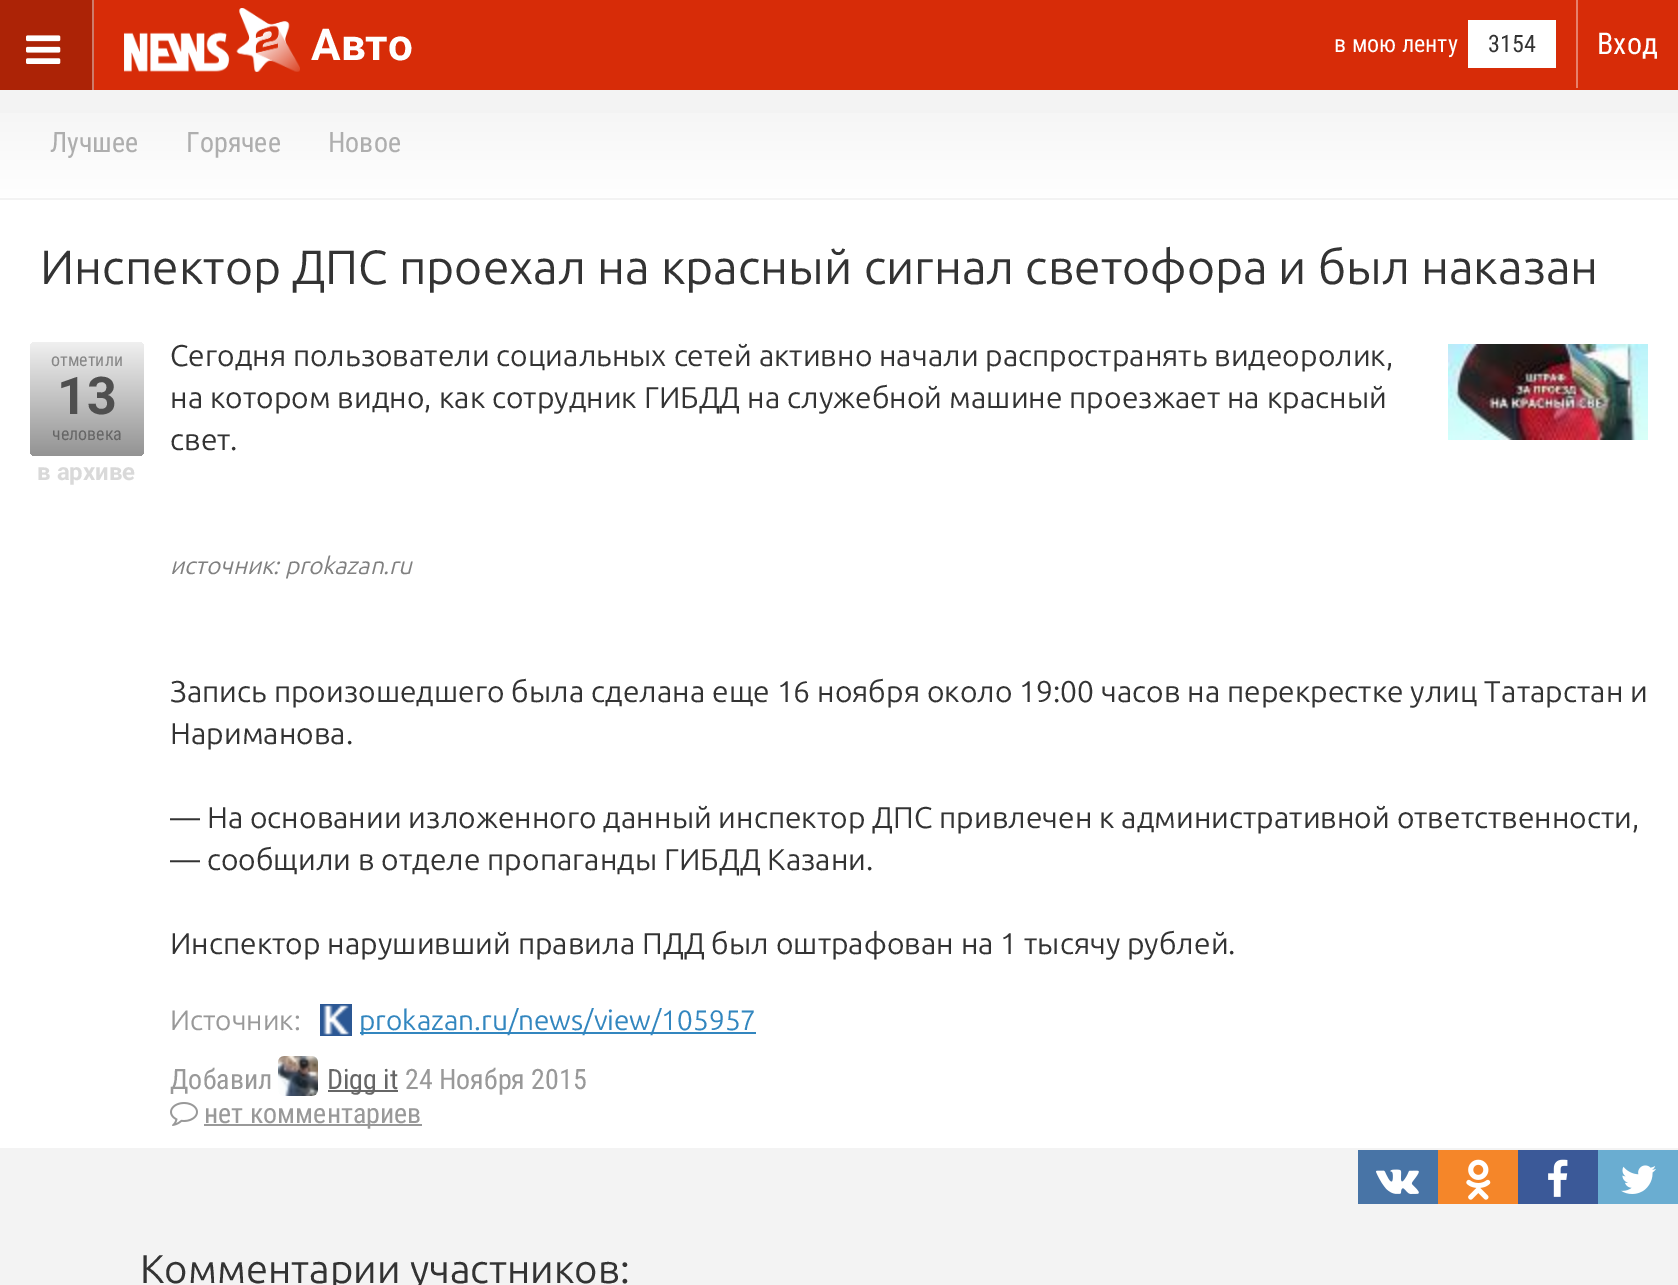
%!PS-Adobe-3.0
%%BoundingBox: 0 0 1678 1285
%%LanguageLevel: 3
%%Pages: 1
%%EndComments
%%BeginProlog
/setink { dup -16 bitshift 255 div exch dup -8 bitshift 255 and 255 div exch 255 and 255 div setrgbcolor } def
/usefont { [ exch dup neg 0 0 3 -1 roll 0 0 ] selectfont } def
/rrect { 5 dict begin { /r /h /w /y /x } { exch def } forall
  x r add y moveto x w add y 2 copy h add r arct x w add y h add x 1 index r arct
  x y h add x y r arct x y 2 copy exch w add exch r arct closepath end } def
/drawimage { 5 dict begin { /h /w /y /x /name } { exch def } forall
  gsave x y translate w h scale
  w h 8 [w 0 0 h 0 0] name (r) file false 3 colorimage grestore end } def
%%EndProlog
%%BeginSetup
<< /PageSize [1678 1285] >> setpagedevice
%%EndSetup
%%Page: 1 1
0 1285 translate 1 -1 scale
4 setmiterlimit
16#F3F3F3 setink
0 0 1678 1285 rectfill
[
    [94 0 1584 90 16#D72C08]
    [0 0 92 90 16#AC2306]
    [92 0 2 90 16#CD7B6A]
] { aload pop setink rectfill } forall
(img1.raw) 26 35 35 29 drawimage
(img2.raw) 124 8 176 64 drawimage
/Roboto-Bold 44 usefont
16#FFFFFF setink
311 60 moveto (Авто) show
/RobotoCondensed-Regular 24 usefont
1334 52 moveto (в мою ленту) show
1468 20 88 48 rectfill
16#333333 setink
1488 52 moveto (3154) show
16#E7806B setink
1576 0 2 88 rectfill
/RobotoCondensed-Regular 30 usefont
16#FFFFFF setink
1597 54 moveto (Вход) show
gsave 0 113 moveto 1678 113 lineto 1678 198 lineto 0 198 lineto closepath clip newpath
<< /ShadingType 2 /ColorSpace /DeviceRGB /Coords [839 90 839 198] /Extend [true true] /Function << /FunctionType 2 /Domain [0 1] /C0 [0.953 0.953 0.953] /C1 [1 1 1] /N 1 >> >> shfill grestore
/RobotoCondensed-Regular 28 usefont
16#AEAEAE setink
[
    [(Лучшее) 50 152]
    [(Горячее) 186 152]
    [(Новое) 328 152]
] { aload pop moveto show } forall
16#FFFFFF setink
0 200 1678 948 rectfill
/Ubuntu-Regular 48 usefont
16#333333 setink
40 284 moveto (Инспектор ДПС проехал на красный сигнал светофора и был наказан) show
gsave 30 342 114 114 6 rrect clip newpath
<< /ShadingType 2 /ColorSpace /DeviceRGB /Coords [87 342 87 456] /Extend [true true] /Function << /FunctionType 2 /Domain [0 1] /C0 [0.941 0.941 0.941] /C1 [0.576 0.576 0.576] /N 1 >> >> shfill grestore
/RobotoCondensed-Regular 18 usefont
16#878787 setink
51 366 moveto (отметили) show
/Roboto-Bold 52 usefont
16#4F4F4F setink
57 414 moveto (13) show
/RobotoCondensed-Regular 18 usefont
16#666666 setink
52 440 moveto (человека) show
/Roboto-Bold 24 usefont
16#D9D9D9 setink
37 480 moveto (в архиве) show
/Ubuntu-Regular 30 usefont
16#333333 setink
[
    [(Сегодня пользователи социальных сетей активно начали распространять видеоролик,) 170 366]
    [(на котором видно, как сотрудник ГИБДД на служебной машине проезжает на красный) 170 408]
    [(свет.) 170 450]
] { aload pop moveto show } forall
/Ubuntu-Italic 24 usefont
16#808080 setink
170 574 moveto (источник: prokazan.ru) show
/Ubuntu-Regular 30 usefont
16#333333 setink
[
    [(Запись произошедшего была сделана еще 16 ноября около 19:00 часов на перекрестке улиц Татарстан и) 170 702]
    [(Нариманова.) 170 744]
    [(— На основании изложенного данный инспектор ДПС привлечен к административной ответственности,) 170 828]
    [(— сообщили в отделе пропаганды ГИБДД Казани.) 170 870]
    [(Инспектор нарушивший правила ПДД был оштрафован на 1 тысячу рублей.) 170 954]
] { aload pop moveto show } forall
(img3.raw) 1448 344 200 96 drawimage
/Ubuntu-Regular 28 usefont
16#999999 setink
170 1030 moveto (Источник:) show
(img4.raw) 320 1004 32 32 drawimage
16#3286BF setink
360 1032 396 2 rectfill
359 1030 moveto (prokazan.ru/news/view/105957) show
/RobotoCondensed-Regular 28 usefont
16#999999 setink
170 1089 moveto (Добавил) show
(img5.raw) 278 1056 40 40 drawimage
16#666666 setink
328 1090 70 2 rectfill
327 1089 moveto (Digg it) show
16#999999 setink
405 1089 moveto (24 Ноября 2015) show
(img6.raw) 170 1102 28 24 drawimage
204 1124 218 2 rectfill
204 1123 moveto (нет комментариев) show
16#4874A6 setink
1358 1150 80 54 rectfill
(img7.raw) 1376 1169 43 25 drawimage
16#F58629 setink
1438 1150 80 54 rectfill
(img8.raw) 1466 1159 25 41 drawimage
16#3B5998 setink
1518 1150 80 54 rectfill
(img9.raw) 1548 1159 20 38 drawimage
16#6AADD1 setink
1598 1150 80 54 rectfill
(img10.raw) 1621 1165 35 29 drawimage
/Ubuntu-Regular 40 usefont
16#333333 setink
140 1283 moveto (Комментарии участников:) show
showpage
%%EOF
